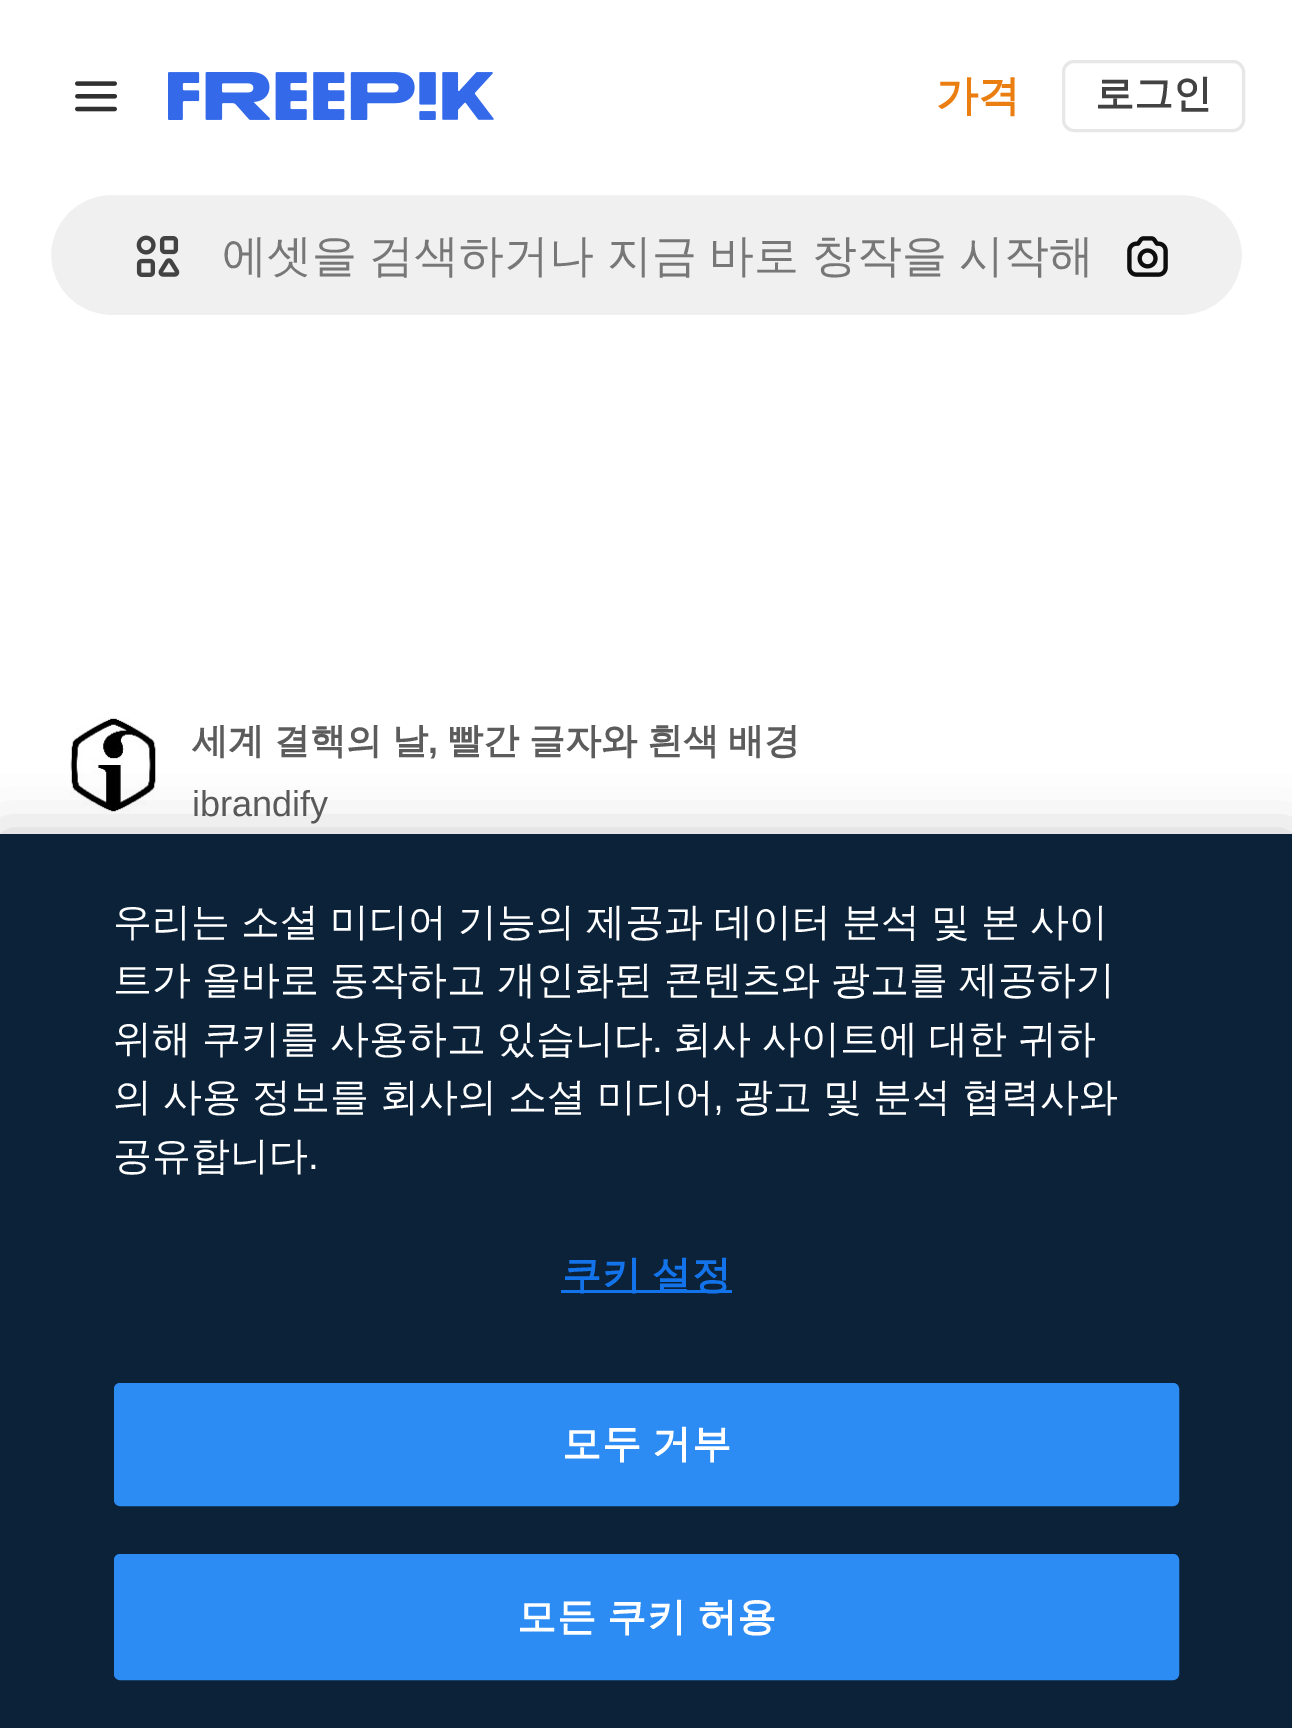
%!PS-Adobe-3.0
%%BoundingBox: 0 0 1292 1728
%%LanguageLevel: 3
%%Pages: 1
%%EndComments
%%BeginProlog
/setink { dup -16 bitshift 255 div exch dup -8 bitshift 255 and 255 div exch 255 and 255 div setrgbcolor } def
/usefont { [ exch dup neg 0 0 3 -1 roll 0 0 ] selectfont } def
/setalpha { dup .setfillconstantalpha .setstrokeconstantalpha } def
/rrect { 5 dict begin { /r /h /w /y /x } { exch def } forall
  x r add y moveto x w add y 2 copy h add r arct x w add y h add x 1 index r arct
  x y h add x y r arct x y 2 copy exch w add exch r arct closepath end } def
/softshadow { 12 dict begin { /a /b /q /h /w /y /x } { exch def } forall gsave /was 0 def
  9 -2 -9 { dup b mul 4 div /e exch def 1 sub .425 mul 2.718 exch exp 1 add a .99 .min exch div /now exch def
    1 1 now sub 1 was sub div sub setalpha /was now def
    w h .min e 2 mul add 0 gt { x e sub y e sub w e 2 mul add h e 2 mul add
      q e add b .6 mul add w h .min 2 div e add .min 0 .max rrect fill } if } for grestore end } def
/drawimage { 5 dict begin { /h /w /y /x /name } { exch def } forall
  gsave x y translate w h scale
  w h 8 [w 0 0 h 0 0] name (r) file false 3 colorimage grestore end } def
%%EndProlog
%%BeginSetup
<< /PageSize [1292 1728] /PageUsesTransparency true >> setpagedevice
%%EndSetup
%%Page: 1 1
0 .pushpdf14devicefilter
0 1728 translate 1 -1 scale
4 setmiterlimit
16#FFFFFF setink
0 0 1292 1728 rectfill
(img1.raw) 75 81 42 31 drawimage
(img2.raw) 168 72 326 48 drawimage
/WenQuanYiZenHei-Bold 42 usefont
16#EA7E11 setink
936 110 moveto (가격) show
16#E7E7E7 setink
3 setlinewidth
1063.5 61.5 180 69 10.5 rrect stroke
/WenQuanYiZenHei-Bold 39 usefont
16#424242 setink
1095 107 moveto (로그인) show
16#F0F0F0 setink
49.5 193.5 1194 123 61.5 rrect gsave fill grestore
16#FFFFFF setink
stroke
(img3.raw) 136 235 44 42 drawimage
/WenQuanYiZenHei-Medium 45 usefont
16#777777 setink
222 271 moveto -1 0 32 (에셋을 검색하거나 지금 바로 창작을 시작해) widthshow
(img4.raw) 1127 236 41 41 drawimage
(img5.raw) 70 717 86 95 drawimage
/WenQuanYiZenHei-Bold 36 usefont
16#5C5C5C setink
192 753 moveto -1 0 32 (세계 결핵의 날) widthshow
/LiberationSans-Bold 36 usefont
428 753 moveto (,) show
/WenQuanYiZenHei-Bold 36 usefont
447 753 moveto -1 0 32 (빨간 글자와 흰색 배경) widthshow
/LiberationSans-Regular 36 usefont
192 816 moveto (ibrandify) show
16#000000 setink
0 834 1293 894 0 27 0.2 softshadow
16#0B2239 setink
0 834 1292 894 rectfill
/WenQuanYiZenHei-Medium 39 usefont
16#FFFFFF setink
113 935 moveto -0.75 0 32 (우리는 소셜 미디어 기능의 제공과 데이터 분석 및 본 사이) widthshow
113 993 moveto -0.75 0 32 (트가 올바로 동작하고 개인화된 콘텐츠와 광고를 제공하기) widthshow
113 1052 moveto -0.75 0 32 (위해 쿠키를 사용하고 있습니다) widthshow
/LiberationSans-Regular 39 usefont
652 1052 moveto (.) show
/WenQuanYiZenHei-Medium 39 usefont
673 1052 moveto -0.75 0 32 (회사 사이트에 대한 귀하) widthshow
113 1110 moveto -0.75 0 32 (의 사용 정보를 회사의 소셜 미디어) widthshow
/LiberationSans-Regular 39 usefont
713 1110 moveto (,) show
/WenQuanYiZenHei-Medium 39 usefont
734 1110 moveto -0.75 0 32 (광고 및 분석 협력사와) widthshow
113 1169 moveto (공유합니다) show
/LiberationSans-Regular 39 usefont
308 1169 moveto (.) show
16#1273EB setink
561 1290 171 3 rectfill
/WenQuanYiZenHei-Bold 39 usefont
562 1288 moveto -0.75 0 32 0.5 0 (쿠키 설정) awidthshow
16#2C8CF4 setink
115.5 1384.5 1062 120 4.5 rrect gsave fill grestore
stroke
16#FFFFFF setink
562 1457 moveto -0.75 0 32 0.5 0 (모두 거부) awidthshow
16#2C8CF4 setink
115.5 1555.5 1062 123 4.5 rrect gsave fill grestore
stroke
16#FFFFFF setink
517 1630 moveto -0.75 0 32 0.5 0 (모든 쿠키 허용) awidthshow
.poppdf14devicefilter showpage
%%EOF
